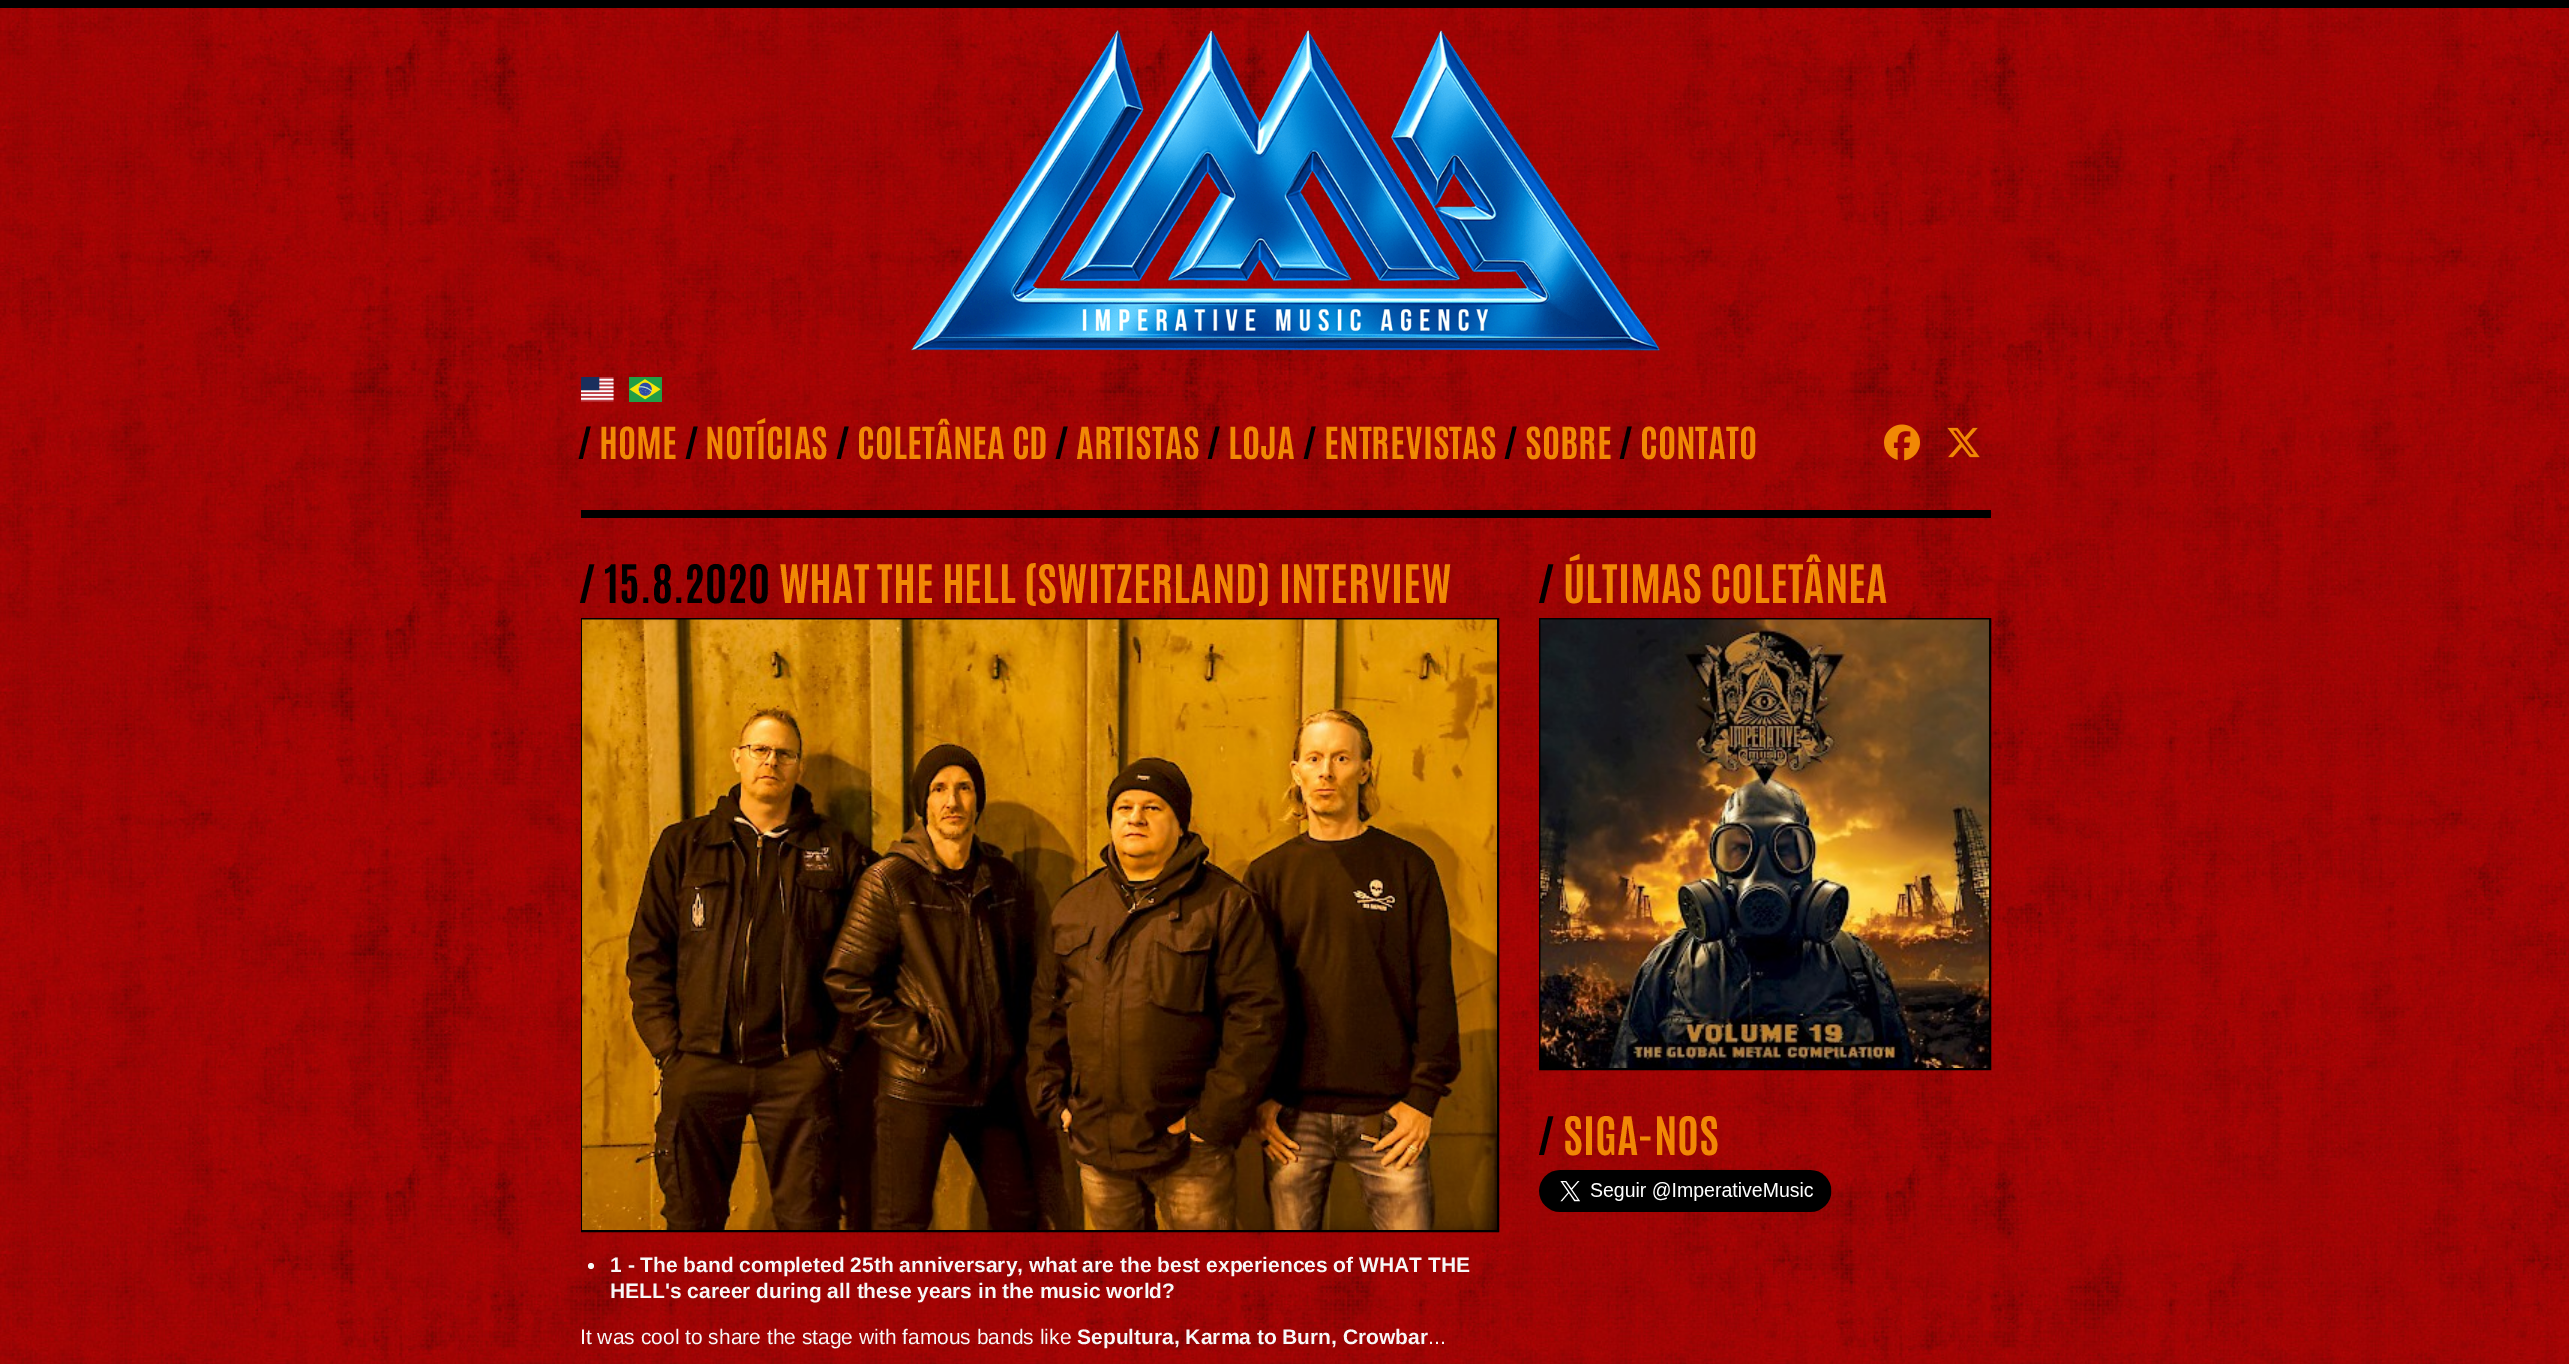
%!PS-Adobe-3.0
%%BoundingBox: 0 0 2569 1364
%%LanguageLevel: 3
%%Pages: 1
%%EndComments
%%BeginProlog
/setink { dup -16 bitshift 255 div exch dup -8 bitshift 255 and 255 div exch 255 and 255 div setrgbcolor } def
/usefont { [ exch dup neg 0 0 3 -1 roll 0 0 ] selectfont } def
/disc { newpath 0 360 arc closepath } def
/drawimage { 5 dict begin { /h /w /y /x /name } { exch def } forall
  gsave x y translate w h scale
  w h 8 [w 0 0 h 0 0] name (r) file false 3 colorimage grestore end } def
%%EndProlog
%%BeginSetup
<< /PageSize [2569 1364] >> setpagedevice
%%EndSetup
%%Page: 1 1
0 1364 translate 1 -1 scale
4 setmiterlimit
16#FFFFFF setink
0 0 2569 1364 rectfill
(img1.raw) 0 8 2569 1356 drawimage
16#000000 setink
0 0 2569 8 rectfill
(img2.raw) 910 29 750 322 drawimage
(img3.raw) 581 377 33 25 drawimage
(img4.raw) 629 377 33 25 drawimage
/Antonio-Bold 37.5 usefont
577 459 moveto (/) show
16#F18805 setink
599 459 moveto (HOME) show
16#000000 setink
684 459 moveto (/) show
16#F18805 setink
705 459 moveto (NOTÍCIAS) show
16#000000 setink
835 459 moveto (/) show
16#F18805 setink
857 459 moveto (COLETÂNEA CD) show
16#000000 setink
1054 459 moveto (/) show
16#F18805 setink
1076 459 moveto (ARTISTAS) show
16#000000 setink
1206 459 moveto (/) show
16#F18805 setink
1228 459 moveto (LOJA) show
16#000000 setink
1302 459 moveto (/) show
16#F18805 setink
1324 459 moveto (ENTREVISTAS) show
16#000000 setink
1503 459 moveto (/) show
16#F18805 setink
1525 459 moveto (SOBRE) show
16#000000 setink
1618 459 moveto (/) show
16#F18805 setink
1640 459 moveto (CONTATO) show
(img5.raw) 1884 424 36 37 drawimage
(img6.raw) 1947 427 33 31 drawimage
16#000000 setink
581 510 1410 8 rectfill
/Antonio-Bold 45 usefont
578 603 moveto (/ 15.8.2020) show
16#F18805 setink
779 603 moveto (WHAT THE HELL \(SWITZERLAND\) INTERVIEW) show
16#000000 setink
2 setlinewidth
582 619 916 612 rectstroke
(img7.raw) 582 619 915 611 drawimage
16#F8F8F8 setink
591 1266 3 disc fill
/LiberationSans-Bold 21 usefont
610 1272 moveto (1 - The band completed 25th anniversary, what are the best experiences of WHAT THE) show
610 1298 moveto (HELL's career during all these years in the music world?) show
/LiberationSans-Regular 21 usefont
580 1344 moveto (It was cool to share the stage with famous bands like) show
/LiberationSans-Bold 21 usefont
1077 1344 moveto (Sepultura, Karma to Burn, Crowbar) show
/LiberationSans-Regular 21 usefont
1428 1344 moveto (...) show
/Antonio-Bold 45 usefont
16#000000 setink
1537 603 moveto (/) show
16#F18805 setink
1563 603 moveto (ÚLTIMAS COLETÂNEA) show
16#000000 setink
1540 619 450 450 rectstroke
(img8.raw) 1540 619 449 449 drawimage
1537 1155 moveto (/) show
16#F18805 setink
1563 1155 moveto (SIGA-NOS) show
(img9.raw) 1539 1170 293 42 drawimage
showpage
%%EOF
